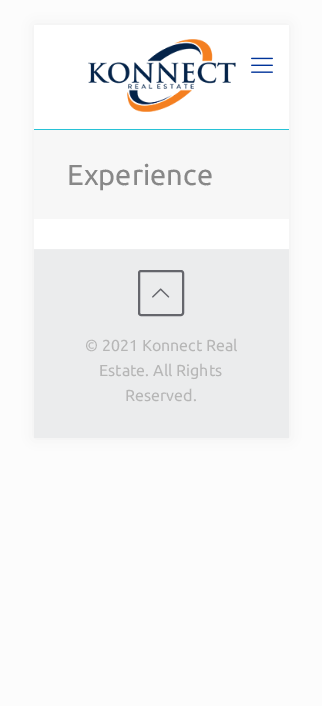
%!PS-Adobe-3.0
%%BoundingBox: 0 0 322 706
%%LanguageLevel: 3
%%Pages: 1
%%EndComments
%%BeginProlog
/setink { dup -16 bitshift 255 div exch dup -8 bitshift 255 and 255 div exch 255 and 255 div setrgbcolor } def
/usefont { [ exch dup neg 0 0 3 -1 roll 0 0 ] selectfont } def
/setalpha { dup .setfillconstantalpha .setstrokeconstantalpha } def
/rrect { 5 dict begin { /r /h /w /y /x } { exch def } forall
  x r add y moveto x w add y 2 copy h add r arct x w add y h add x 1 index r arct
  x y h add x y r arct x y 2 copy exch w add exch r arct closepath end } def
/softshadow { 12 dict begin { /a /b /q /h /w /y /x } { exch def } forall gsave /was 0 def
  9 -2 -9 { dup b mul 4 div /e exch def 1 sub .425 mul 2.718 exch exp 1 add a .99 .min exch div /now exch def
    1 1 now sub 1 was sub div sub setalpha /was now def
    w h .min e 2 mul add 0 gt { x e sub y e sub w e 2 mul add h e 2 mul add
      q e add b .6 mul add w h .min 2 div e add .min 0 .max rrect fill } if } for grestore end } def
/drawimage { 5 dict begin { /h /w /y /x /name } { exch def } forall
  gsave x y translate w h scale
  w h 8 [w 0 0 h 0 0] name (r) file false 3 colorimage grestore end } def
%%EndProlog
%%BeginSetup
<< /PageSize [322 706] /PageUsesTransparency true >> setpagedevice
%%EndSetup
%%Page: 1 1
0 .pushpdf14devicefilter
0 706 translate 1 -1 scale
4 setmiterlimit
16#FCFCFC setink
0 0 322 706 rectfill
16#000000 setink
34 25 255 413 0 7.5 0.06 softshadow
16#FFFFFF setink
34 25 255 224 rectfill
16#27C2D6 setink
34 129 255 1 rectfill
(img1.raw) 88 39 148 73 drawimage
(img2.raw) 251 57 22 16 drawimage
16#F7F7F7 setink
34 130 255 89 rectfill
/Ubuntu-Regular 29 usefont
16#888888 setink
67 185 moveto (Experience) show
16#EBECED setink
34 250 255 188 rectfill
16#EDEEEF setink
34 249 255 1 rectfill
16#65666C setink
2 setlinewidth
139 271 44 44 2 rrect stroke
(img3.raw) 152 288 18 10 drawimage
/Ubuntu-Regular 16 usefont
16#B6B6B6 setink
[
    [(© 2021 Konnect Real) 85 351]
    [(Estate. All Rights) 99 376]
    [(Reserved.) 125 401]
] { aload pop moveto show } forall
.poppdf14devicefilter showpage
%%EOF
